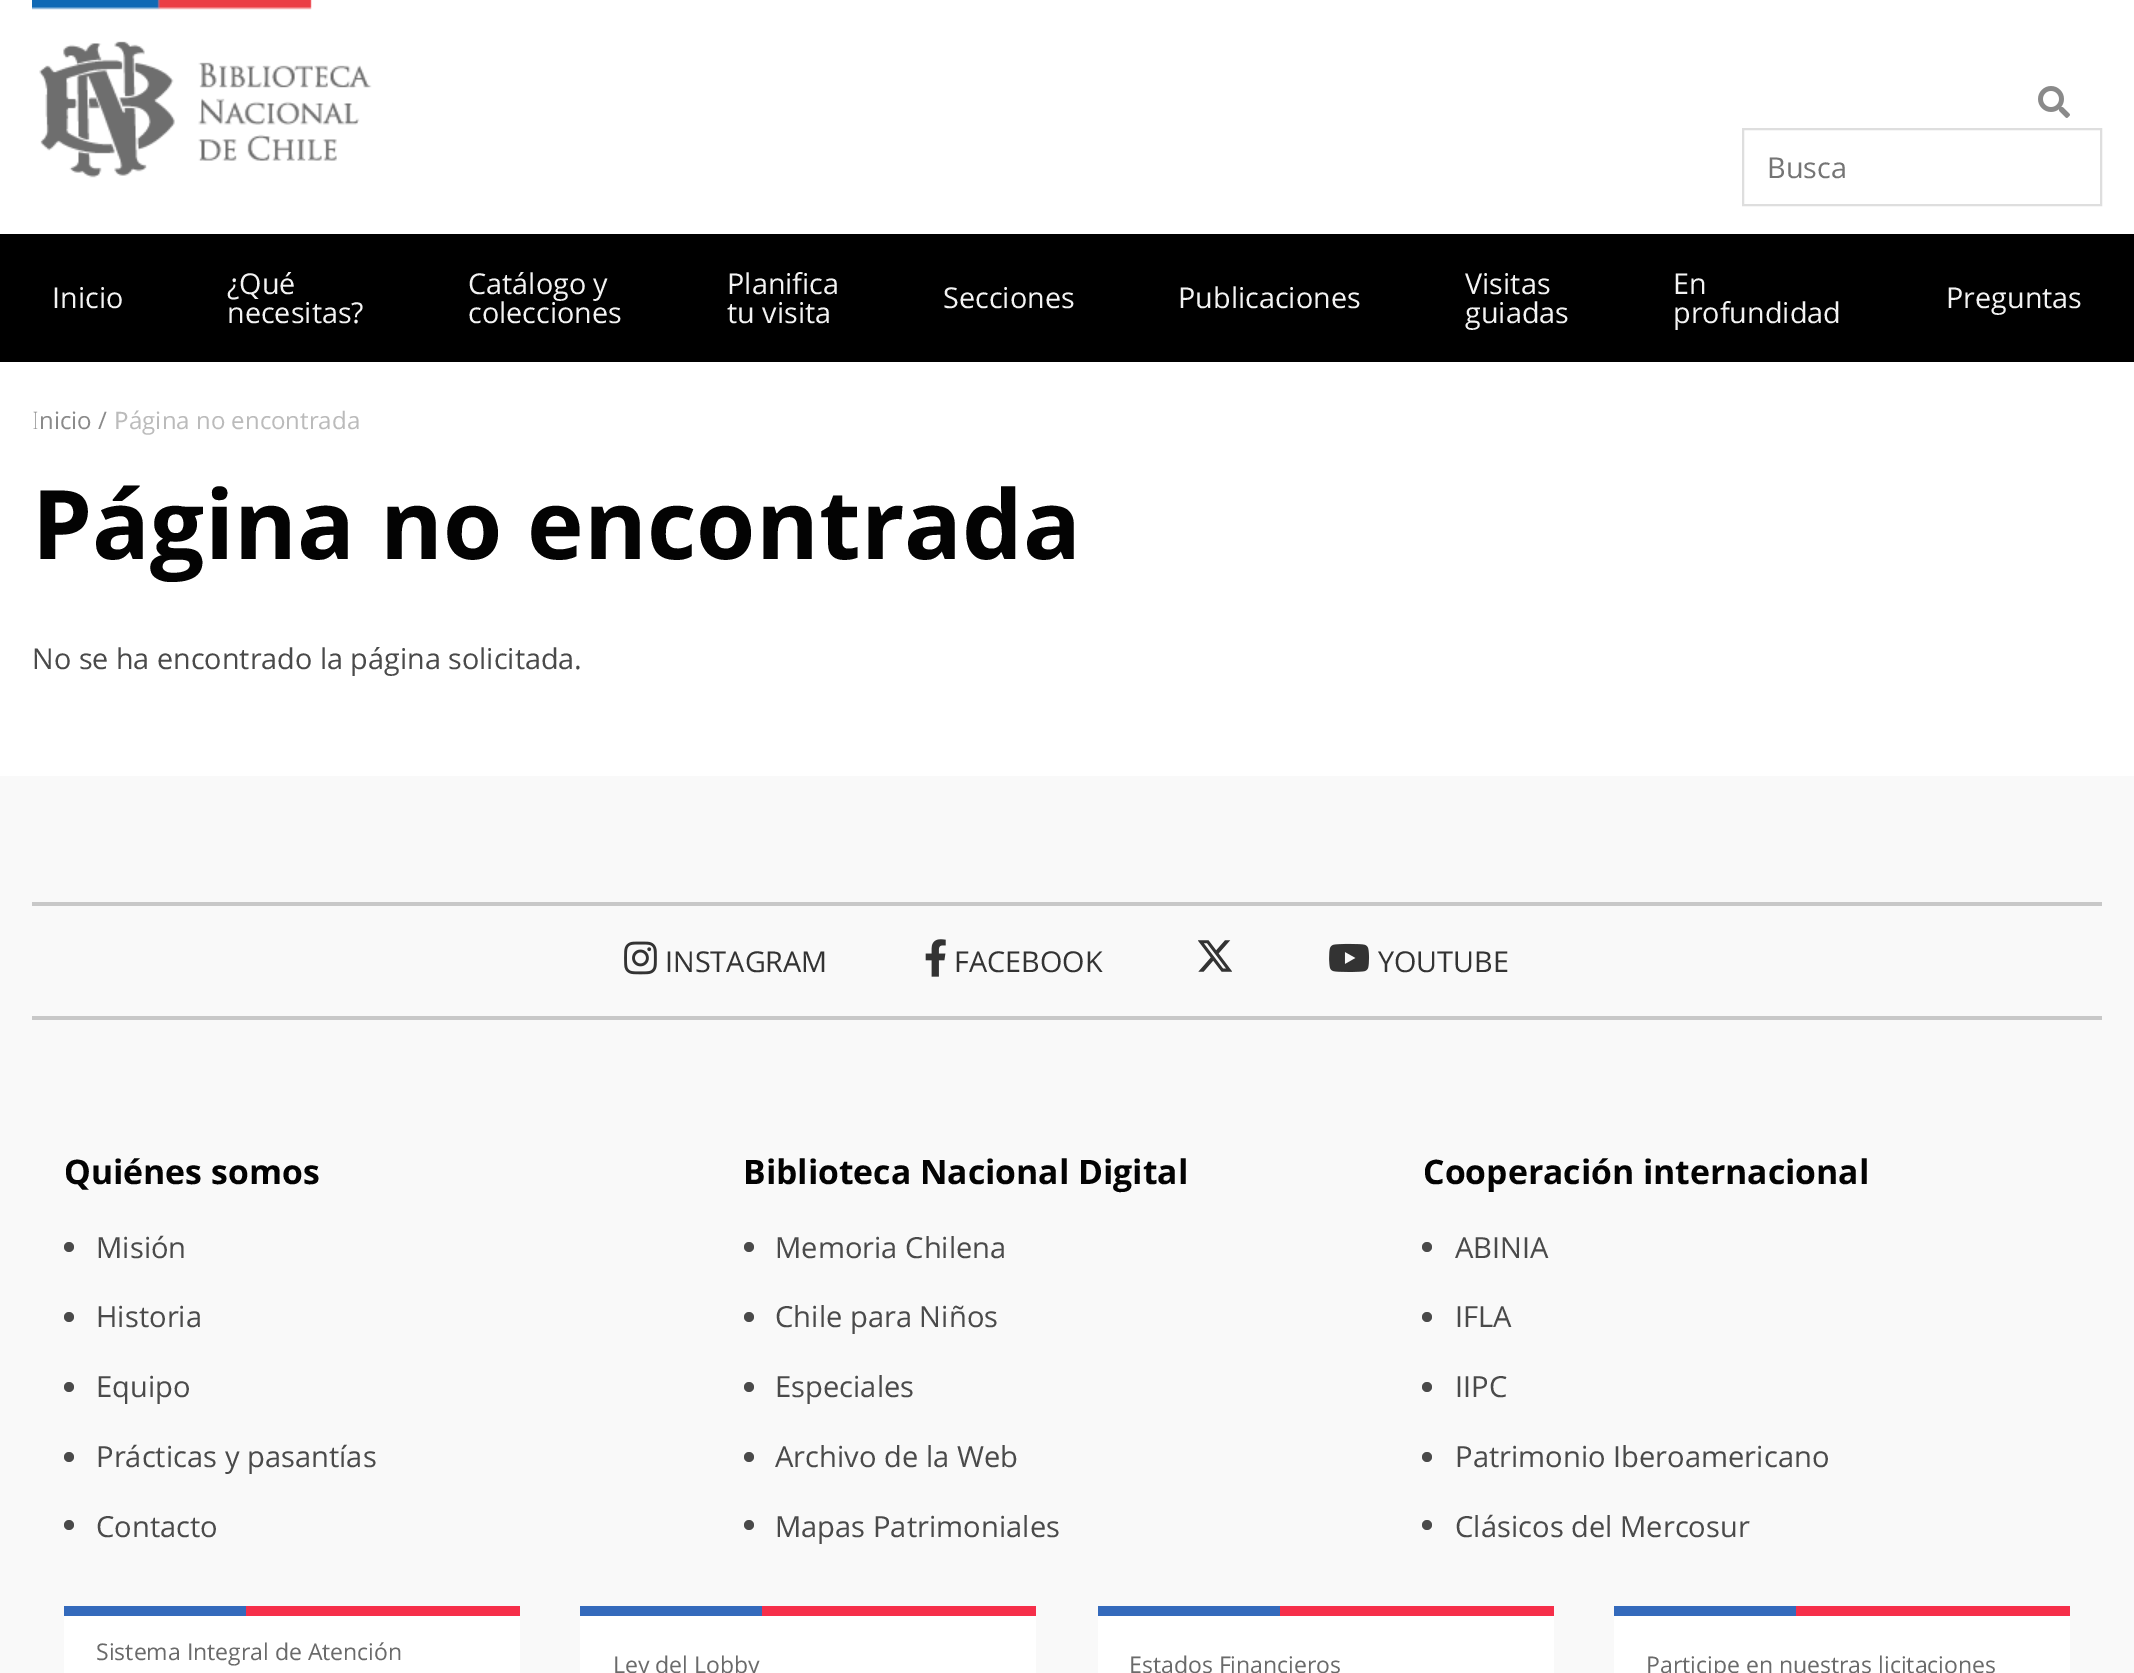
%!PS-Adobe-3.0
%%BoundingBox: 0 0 2134 1673
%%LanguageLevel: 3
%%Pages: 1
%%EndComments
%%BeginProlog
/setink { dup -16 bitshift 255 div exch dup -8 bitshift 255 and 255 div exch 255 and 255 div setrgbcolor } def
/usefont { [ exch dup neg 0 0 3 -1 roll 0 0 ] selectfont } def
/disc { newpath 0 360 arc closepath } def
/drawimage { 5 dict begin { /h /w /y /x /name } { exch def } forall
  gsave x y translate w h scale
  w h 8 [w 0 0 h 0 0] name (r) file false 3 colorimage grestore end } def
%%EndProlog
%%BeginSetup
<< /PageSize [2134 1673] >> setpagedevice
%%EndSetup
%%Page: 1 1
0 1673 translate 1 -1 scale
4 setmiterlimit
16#FFFFFF setink
0 0 2134 1673 rectfill
(img1.raw) 32 0 340 178 drawimage
(img2.raw) 2038 86 32 32 drawimage
16#DEDEDE setink
2 setlinewidth
1743 129 358 76 rectstroke
/OpenSans-Regular 28.75 usefont
16#757575 setink
1767 178 moveto (Busca) show
16#000000 setink
0 234 2134 128 rectfill
16#F3F3F3 setink
[
    [(Inicio) 52 308]
    [(¿Qué) 227 294]
    [(necesitas?) 227 323]
    [(Catálogo y) 468 294]
    [(colecciones) 468 323]
    [(Planifica) 727 294]
    [(tu visita) 727 323]
    [(Secciones) 943 308]
    [(Publicaciones) 1178 308]
    [(Visitas) 1465 294]
    [(guiadas) 1465 323]
    [(En) 1673 294]
    [(profundidad) 1673 323]
    [(Preguntas) 1946 308]
] { aload pop moveto show } forall
/NotoSans-Thin 24 usefont
16#8A8A8A setink
32 429 moveto (I) show
/OpenSans-Regular 24 usefont
39 429 moveto (nicio /) show
/NotoSans-Regular 24 usefont
16#BBBBBB setink
114 429 moveto (P) show
/OpenSans-Regular 24 usefont
129 429 moveto (ágina no encontrada) show
/OpenSans-Bold 96 usefont
16#030303 setink
32 559 moveto (Página no encontrada) show
/OpenSans-Regular 28.75 usefont
16#4A4A4A setink
32 669 moveto (No se ha encontrado la página solicitada.) show
[
    [0 776 2134 897 16#F9F9F9]
    [32 902 2070 4 16#C8C8C8]
    [32 1016 2070 4 16#C8C8C8]
] { aload pop setink rectfill } forall
(img3.raw) 624 941 33 34 drawimage
16#333333 setink
665 972 moveto (INSTAGRAM) show
(img4.raw) 925 939 21 38 drawimage
954 972 moveto (FACEBOOK) show
(img5.raw) 1198 940 34 32 drawimage
(img6.raw) 1329 943 41 29 drawimage
1378 972 moveto (YOUTUBE) show
/OpenSans-Bold 33.75 usefont
16#030303 setink
64 1184 moveto (Quiénes somos) show
16#4A4A4A setink
69 1247 5 disc fill
/OpenSans-Regular 29.1 usefont
96 1258 moveto (Misión) show
69 1317 5 disc fill
96 1327 moveto (Historia) show
69 1387 5 disc fill
96 1397 moveto (Equipo) show
69 1457 5 disc fill
96 1467 moveto (Prácticas y pasantías) show
69 1525 5 disc fill
96 1537 moveto (Contacto) show
/OpenSans-Bold 33.75 usefont
16#030303 setink
743 1184 moveto (Biblioteca Nacional Digital) show
16#4A4A4A setink
749 1247 5 disc fill
/OpenSans-Regular 29.1 usefont
775 1258 moveto (Memoria Chilena) show
749 1317 5 disc fill
775 1327 moveto (Chile para Niños) show
749 1387 5 disc fill
775 1397 moveto (Especiales) show
749 1457 5 disc fill
775 1467 moveto (Archivo de la Web) show
749 1525 5 disc fill
775 1537 moveto (Mapas Patrimoniales) show
/OpenSans-Bold 33.75 usefont
16#030303 setink
1423 1184 moveto (Cooperación internacional) show
16#4A4A4A setink
1427 1247 5 disc fill
/OpenSans-Regular 29.1 usefont
1455 1258 moveto (ABINIA) show
1427 1317 5 disc fill
1455 1327 moveto (IFLA) show
1427 1387 5 disc fill
1455 1397 moveto (IIPC) show
1427 1457 5 disc fill
1455 1467 moveto (Patrimonio Iberoamericano) show
1427 1525 5 disc fill
1455 1537 moveto (Clásicos del Mercosur) show
[
    [64 1616 456 57 16#FFFFFF]
    [64 1606 182 10 16#346ABC]
    [246 1606 274 10 16#F62F4A]
] { aload pop setink rectfill } forall
/OpenSans-Regular 23 usefont
16#6A6A6A setink
96 1660 moveto (Sistema Integral de Atención) show
[
    [580 1616 456 57 16#FFFFFF]
    [580 1606 182 10 16#346ABC]
    [762 1606 274 10 16#F62F4A]
] { aload pop setink rectfill } forall
16#6A6A6A setink
613 1673 moveto (Ley del Lobby) show
[
    [1098 1616 456 57 16#FFFFFF]
    [1098 1606 182 10 16#346ABC]
    [1280 1606 274 10 16#F62F4A]
] { aload pop setink rectfill } forall
16#6A6A6A setink
1129 1673 moveto (Estados Financieros) show
[
    [1614 1616 456 57 16#FFFFFF]
    [1614 1606 182 10 16#346ABC]
    [1796 1606 274 10 16#F62F4A]
] { aload pop setink rectfill } forall
16#6A6A6A setink
1646 1673 moveto (Participe en nuestras licitaciones) show
showpage
%%EOF
